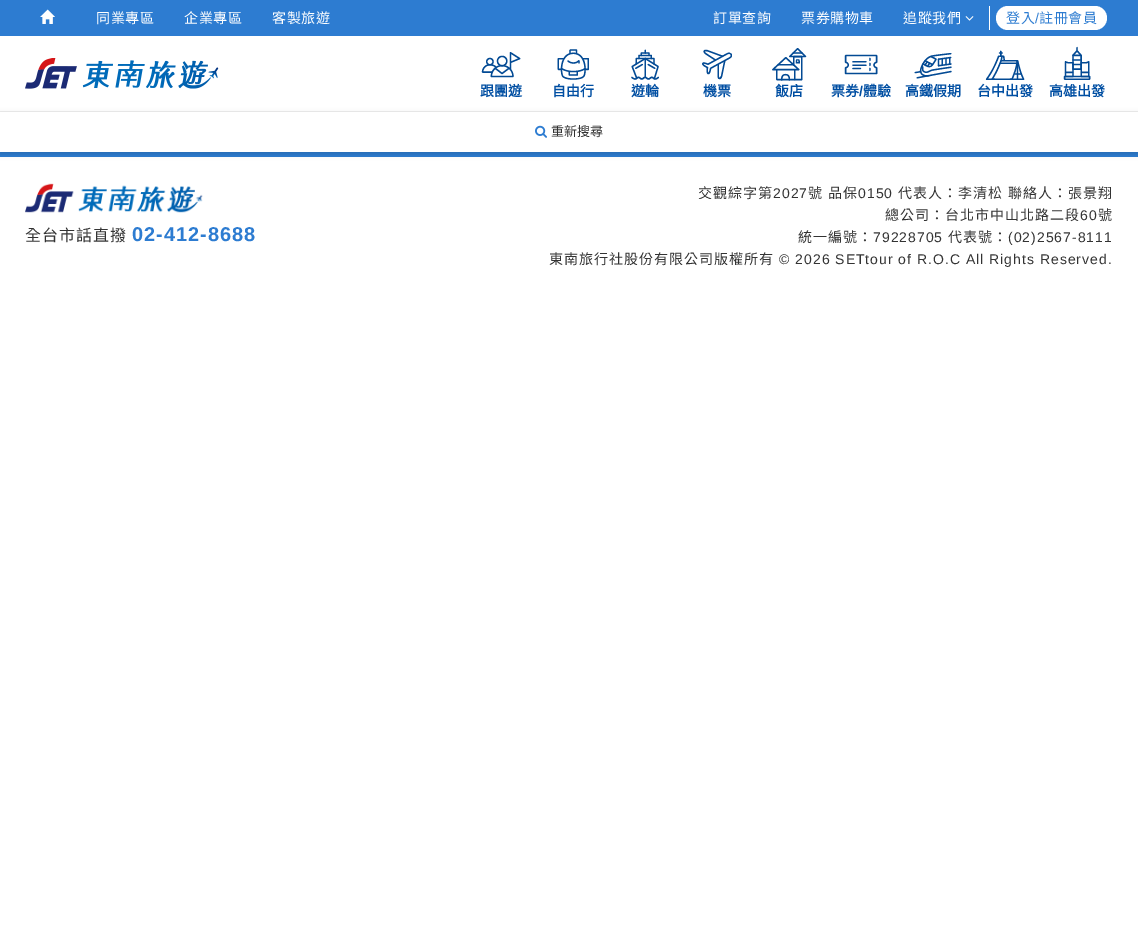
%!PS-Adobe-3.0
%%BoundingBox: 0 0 1138 942
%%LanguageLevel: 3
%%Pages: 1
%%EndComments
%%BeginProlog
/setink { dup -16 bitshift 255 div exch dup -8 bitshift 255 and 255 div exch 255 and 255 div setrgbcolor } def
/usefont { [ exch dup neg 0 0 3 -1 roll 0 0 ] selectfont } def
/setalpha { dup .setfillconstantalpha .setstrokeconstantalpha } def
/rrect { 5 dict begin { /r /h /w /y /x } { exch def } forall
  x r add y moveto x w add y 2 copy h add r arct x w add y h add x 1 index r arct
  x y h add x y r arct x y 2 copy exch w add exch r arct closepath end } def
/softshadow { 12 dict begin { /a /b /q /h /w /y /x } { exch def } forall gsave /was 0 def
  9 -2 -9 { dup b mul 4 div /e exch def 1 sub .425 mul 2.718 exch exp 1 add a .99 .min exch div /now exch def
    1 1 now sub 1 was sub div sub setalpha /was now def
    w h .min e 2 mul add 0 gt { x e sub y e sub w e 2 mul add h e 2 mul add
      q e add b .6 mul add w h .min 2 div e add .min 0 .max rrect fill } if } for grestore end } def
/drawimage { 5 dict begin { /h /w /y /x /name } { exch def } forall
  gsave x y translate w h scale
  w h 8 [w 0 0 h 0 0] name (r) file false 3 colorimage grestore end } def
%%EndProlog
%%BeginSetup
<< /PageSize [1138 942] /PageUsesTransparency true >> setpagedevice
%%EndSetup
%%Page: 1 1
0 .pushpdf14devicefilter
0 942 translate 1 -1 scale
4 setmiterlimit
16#FFFFFF setink
0 0 1138 942 rectfill
16#2D7CD1 setink
0 0 1138 36 rectfill
(img1.raw) 40 9 15 15 drawimage
/NotoSansCJKTC-Regular 14 usefont
16#FFFFFF setink
96 23 moveto 0.5 0 (同業專區) ashow
184 23 moveto 0.5 0 (企業專區) ashow
272 23 moveto 0.5 0 (客製旅遊) ashow
713 23 moveto 0.5 0 (訂單查詢) ashow
801 23 moveto 0.5 0 (票券購物車) ashow
903 23 moveto 0.5 0 (追蹤我們) ashow
(img2.raw) 965 16 9 5 drawimage
989 6 1 24 rectfill
996 6 111 24 12 rrect fill
16#2D7CD1 setink
1006 23 moveto 0.5 0 (登入) ashow
/LiberationSans-Regular 14 usefont
1035 23 moveto 0.5 0 (/) ashow
/NotoSansCJKTC-Regular 14 usefont
1039 23 moveto 0.5 0 (註冊會員) ashow
16#EEEEEE setink
0 111 1138 1 rectfill
(img3.raw) 25 58 194 31 drawimage
(img4.raw) 481 52 40 26 drawimage
/NotoSansCJKTC-Bold 14 usefont
16#004EA2 setink
480 96 moveto (跟團遊) show
(img5.raw) 557 49 32 31 drawimage
552 96 moveto (自由行) show
(img6.raw) 631 49 28 31 drawimage
631 96 moveto (遊輪) show
(img7.raw) 702 49 30 31 drawimage
703 96 moveto (機票) show
(img8.raw) 772 48 35 33 drawimage
775 96 moveto (飯店) show
(img9.raw) 844 54 34 21 drawimage
831 96 moveto (票券) show
/LiberationSans-Bold 14 usefont
859 96 moveto (/) show
/NotoSansCJKTC-Bold 14 usefont
863 96 moveto (體驗) show
(img10.raw) 914 53 38 26 drawimage
905 96 moveto (高鐵假期) show
(img11.raw) 985 50 40 30 drawimage
977 96 moveto (台中出發) show
(img12.raw) 1063 46 28 34 drawimage
1049 96 moveto (高雄出發) show
16#2D7CD1 setink
0 152 1138 5 rectfill
gsave
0 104 moveto 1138 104 lineto 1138 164 lineto 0 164 lineto closepath 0 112 moveto 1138 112 lineto 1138 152 lineto 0 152 lineto closepath eoclip newpath
16#000000 setink
0 114 1138 40 0 3 0.16 softshadow
grestore
(img13.raw) 535 125 12 13 drawimage
/NotoSansCJKTC-Regular 13 usefont
16#333333 setink
551 136 moveto (重新搜尋) show
(img14.raw) 25 183 178 30 drawimage
/NotoSansCJKTC-Regular 16 usefont
25 241 moveto 1 0 (全台市話直撥) ashow
/LiberationSans-Bold 20 usefont
16#2D7CD1 setink
132 241 moveto 1 0 (02-412-8688) ashow
/NotoSansCJKTC-Regular 14 usefont
16#333333 setink
698 198 moveto 1 0 (交觀綜字第) ashow
/LiberationSans-Regular 14 usefont
773 198 moveto 1 0 (2027) ashow
/NotoSansCJKTC-Regular 14 usefont
808 198 moveto 1 0 (號) ashow
828 198 moveto 1 0 (品保) ashow
/LiberationSans-Regular 14 usefont
858 198 moveto 1 0 (0150) ashow
/NotoSansCJKTC-Regular 14 usefont
898 198 moveto 1 0 (代表人：李清松) ashow
1008 198 moveto 1 0 (聯絡人：張景翔) ashow
885 220 moveto 1 0 (總公司：台北市中山北路二段) ashow
/LiberationSans-Regular 14 usefont
1080 220 moveto 1 0 (60) ashow
/NotoSansCJKTC-Regular 14 usefont
1098 220 moveto 1 0 (號) ashow
798 242 moveto 1 0 (統一編號：) ashow
/LiberationSans-Regular 14 usefont
873 242 moveto 1 0 (79228705) ashow
/NotoSansCJKTC-Regular 14 usefont
948 242 moveto 1 0 (代表號：) ashow
/LiberationSans-Regular 14 usefont
1008 242 moveto 1 0 (\(02\)2567-8111) ashow
/NotoSansCJKTC-Regular 14 usefont
549 264 moveto 1 0 (東南旅行社股份有限公司版權所有) ashow
/LiberationSans-Regular 14 usefont
779 264 moveto 1 0 (© 2026 SETtour of R.O.C All Rights Reserved.) ashow
.poppdf14devicefilter showpage
%%EOF
